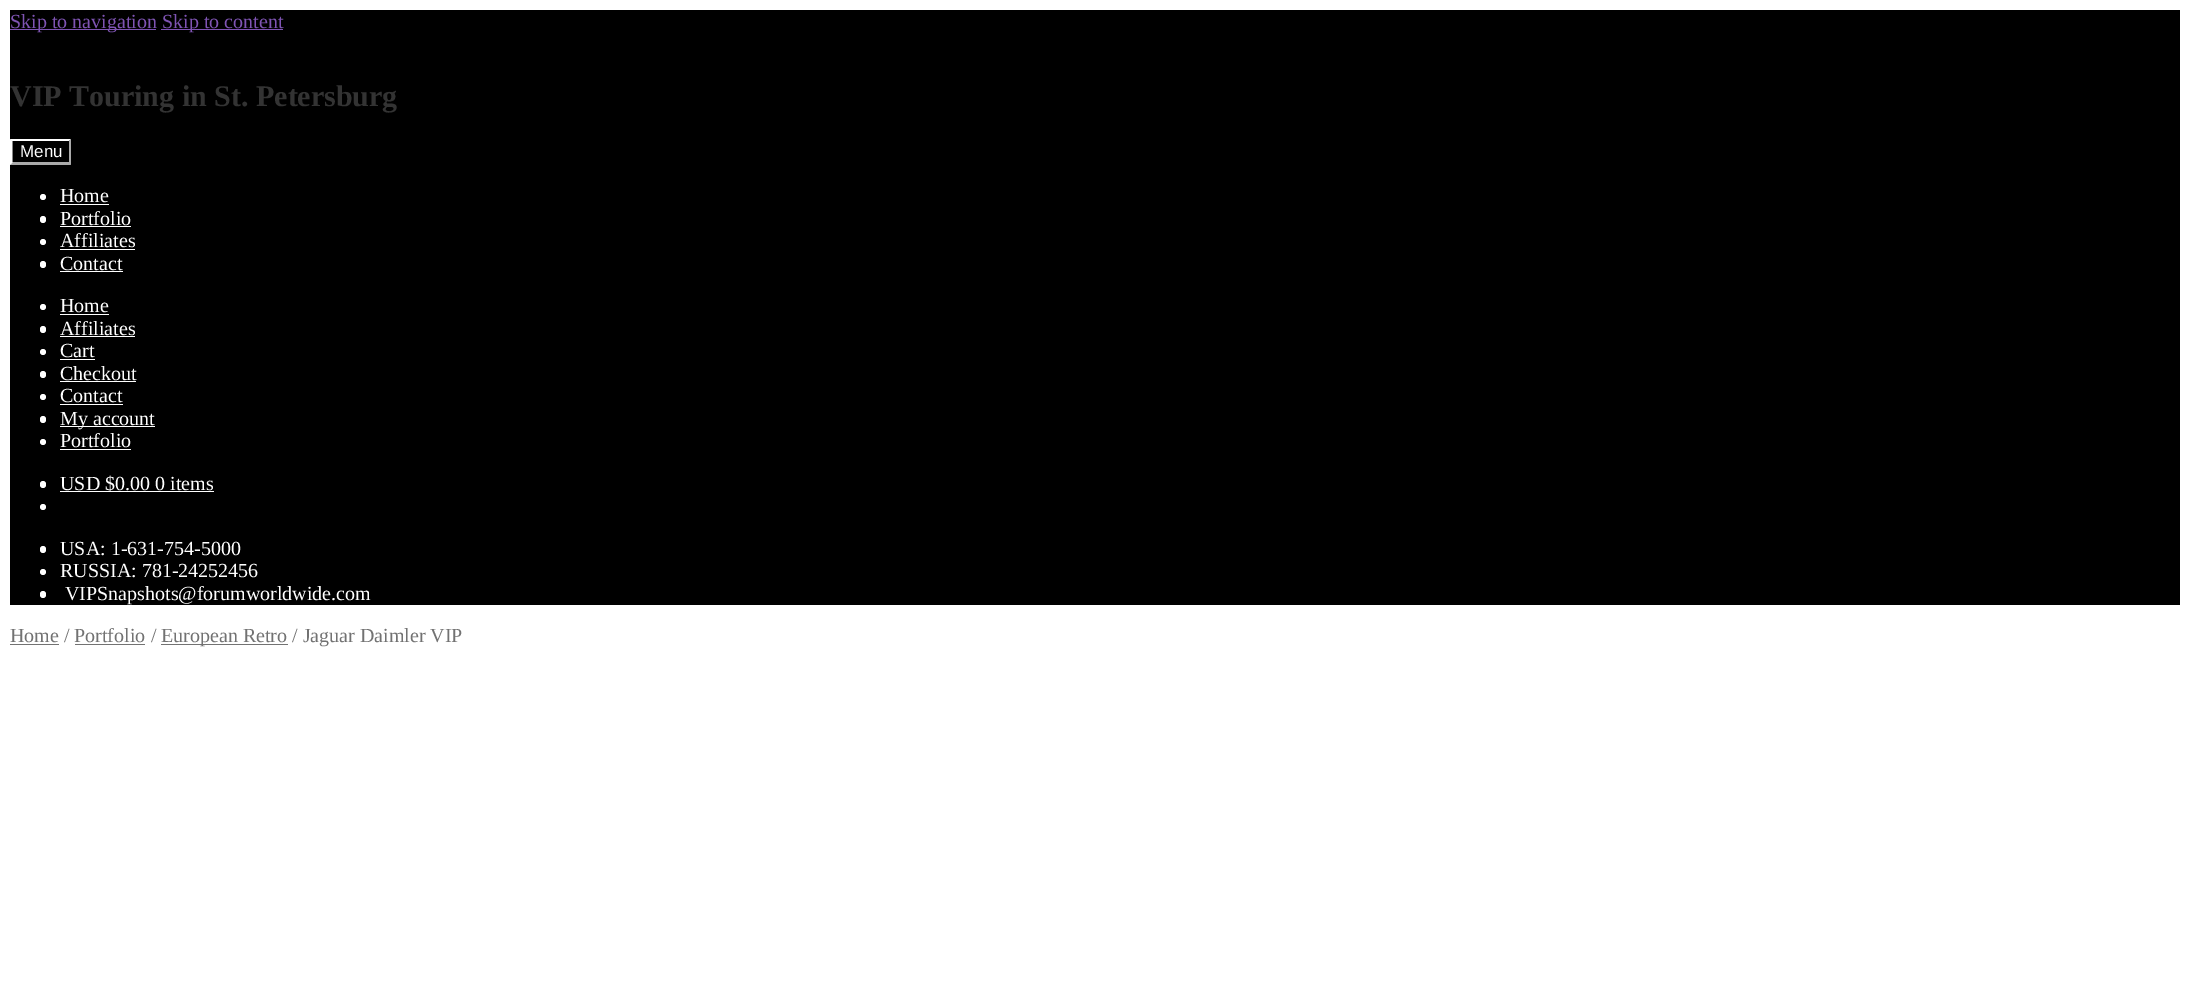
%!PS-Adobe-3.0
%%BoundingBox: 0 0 2189 987
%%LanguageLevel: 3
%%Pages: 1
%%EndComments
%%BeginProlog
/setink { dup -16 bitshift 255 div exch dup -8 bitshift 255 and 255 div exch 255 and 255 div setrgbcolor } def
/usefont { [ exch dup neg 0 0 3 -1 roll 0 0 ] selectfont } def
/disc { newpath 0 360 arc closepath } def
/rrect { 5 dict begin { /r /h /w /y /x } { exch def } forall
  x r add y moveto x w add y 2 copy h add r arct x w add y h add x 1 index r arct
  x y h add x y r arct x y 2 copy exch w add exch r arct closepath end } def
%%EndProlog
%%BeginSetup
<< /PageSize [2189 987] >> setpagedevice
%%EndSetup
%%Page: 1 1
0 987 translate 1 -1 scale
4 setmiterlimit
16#FFFFFF setink
0 0 2189 987 rectfill
16#000000 setink
10 10 2170 595 rectfill
16#7F54B3 setink
10 29 146 1 rectfill
/LiberationSerif-Regular 20 usefont
10 28 moveto (Skip to navigation) show
161 29 122 1 rectfill
162 28 moveto (Skip to content) show
/LiberationSerif-Bold 30 usefont
16#333333 setink
10 106 moveto (VIP Touring in St. Petersburg) show
16#FFFFFF setink
10 139 moveto 71 139 lineto 69 141 lineto 12 141 lineto closepath fill
16#AAAAAA setink
71 139 moveto 71 165 lineto 69 162.5 lineto 69 141 lineto closepath fill
71 165 moveto 10 165 lineto 12 162 lineto 69 162 lineto closepath fill
16#FFFFFF setink
10 165 moveto 10 139 lineto 12.5 141 lineto 12.5 162.5 lineto closepath fill
/LiberationSans-Regular 17 usefont
20 157 moveto (Menu) show
43 197 3 disc fill
/LiberationSerif-Regular 20 usefont
60 202 moveto (Home) show
60 204 49 1 rectfill
40 216 6 7 3 rrect fill
60 225 moveto (Portfolio) show
60 226 71 1 rectfill
43 242 3 disc fill
60 247 moveto (Affiliates) show
60 249 75 1 rectfill
40 261 6 7 3 rrect fill
60 270 moveto (Contact) show
60 271 63 1 rectfill
43 307 3 disc fill
60 312 moveto (Home) show
60 314 49 1 rectfill
40 326 6 7 3 rrect fill
60 335 moveto (Affiliates) show
60 336 75 1 rectfill
43 352 3 disc fill
60 357 moveto (Cart) show
60 359 35 1 rectfill
40 371 6 7 3 rrect fill
60 380 moveto (Checkout) show
60 381 76 1 rectfill
43 397 3 disc fill
60 402 moveto (Contact) show
60 404 63 1 rectfill
40 416 6 7 3 rrect fill
60 426 95 1 rectfill
60 425 moveto (My account) show
43 442 3 disc fill
60 447 moveto (Portfolio) show
60 449 71 1 rectfill
40 481 6 7 3 rrect fill
60 491 154 1 rectfill
60 490 moveto (USD $0.00 0 items) show
43 507 3 disc fill
40 546 6 7 3 rrect fill
60 555 moveto (USA: 1-631-754-5000) show
43 572 3 disc fill
60 577 moveto (RUSSIA: 781-24252456) show
40 591 6 7 3 rrect fill
65 600 moveto (VIPSnapshots@forumworldwide.com) show
16#727272 setink
10 642 moveto (Home) show
10 644 49 1 rectfill
64 642 moveto (/) show
74 642 moveto (Portfolio) show
75 644 70 1 rectfill
151 642 moveto (/) show
161 644 127 1 rectfill
161 642 moveto (European Retro) show
292 642 moveto (/ Jaguar Daimler VIP) show
showpage
%%EOF
